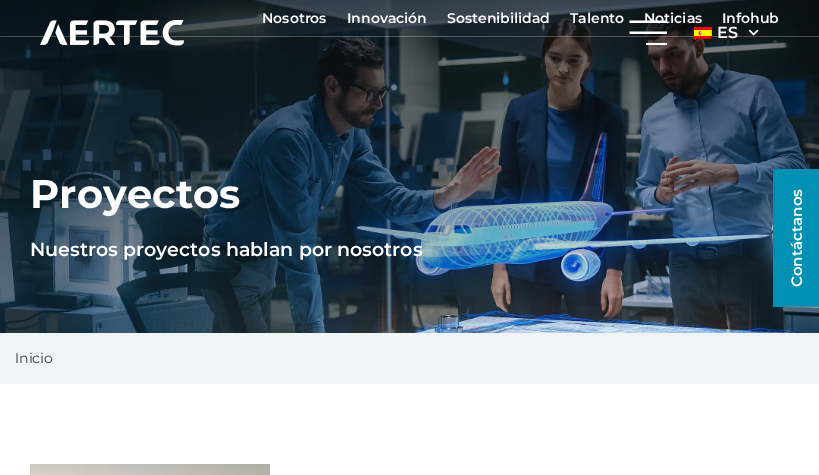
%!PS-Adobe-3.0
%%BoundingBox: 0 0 819 475
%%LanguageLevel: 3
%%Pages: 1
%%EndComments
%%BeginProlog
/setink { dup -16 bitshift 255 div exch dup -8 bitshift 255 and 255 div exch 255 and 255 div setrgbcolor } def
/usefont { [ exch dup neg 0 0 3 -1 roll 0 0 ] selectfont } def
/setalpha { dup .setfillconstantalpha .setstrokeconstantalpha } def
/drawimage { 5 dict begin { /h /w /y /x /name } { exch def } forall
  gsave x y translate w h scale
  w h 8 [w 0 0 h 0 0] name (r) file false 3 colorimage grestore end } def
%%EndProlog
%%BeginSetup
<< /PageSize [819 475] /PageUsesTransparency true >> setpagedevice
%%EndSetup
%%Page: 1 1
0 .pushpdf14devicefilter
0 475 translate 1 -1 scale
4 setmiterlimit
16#FFFFFF setink
0 0 819 475 rectfill
(img1.raw) 0 0 819 333 drawimage
/Montserrat-Bold 40 usefont
30 208 moveto (Proyectos) show
/Montserrat-SemiBold 19 usefont
30 256 moveto (Nuestros proyectos hablan por nosotros) show
16#EFF5F7 setink
0 333 819 51 rectfill
/Montserrat-Regular 14 usefont
16#3A3B3B setink
15 363 moveto (Inicio) show
(img2.raw) 30 464 240 11 drawimage
0.25 setalpha
16#FFFFFF setink
0 36 819 1 rectfill
/Montserrat-SemiBold 14 usefont
1 setalpha
[
    [(Nosotros) 262 23]
    [(Innovación) 347 23]
    [(Sostenibilidad) 447 23]
    [(Talento) 570 23]
    [(Noticias) 644 23]
    [(Infohub) 722 23]
] { aload pop moveto show } forall
(img3.raw) 40 20 144 26 drawimage
646 45 moveto 646 43 lineto 667 43 lineto 667 45 lineto closepath 629.5 34 moveto 629.5 31.5 lineto 667 31.5 lineto 667 34 lineto closepath 629.5 23 moveto 629.5 20.5 lineto 667 20.5 lineto 667 23 lineto closepath fill
(img4.raw) 694 27 18 12 drawimage
/Montserrat-SemiBold 16 usefont
717 38 moveto (ES) show
(img5.raw) 748 29 11 7 drawimage
16#0090B3 setink
773 169 46 138 rectfill
/Montserrat-SemiBold 15 usefont
16#FFFFFF setink
gsave 802 287 translate -90 rotate 0 0 moveto (Contáctanos) show grestore
.poppdf14devicefilter showpage
%%EOF
